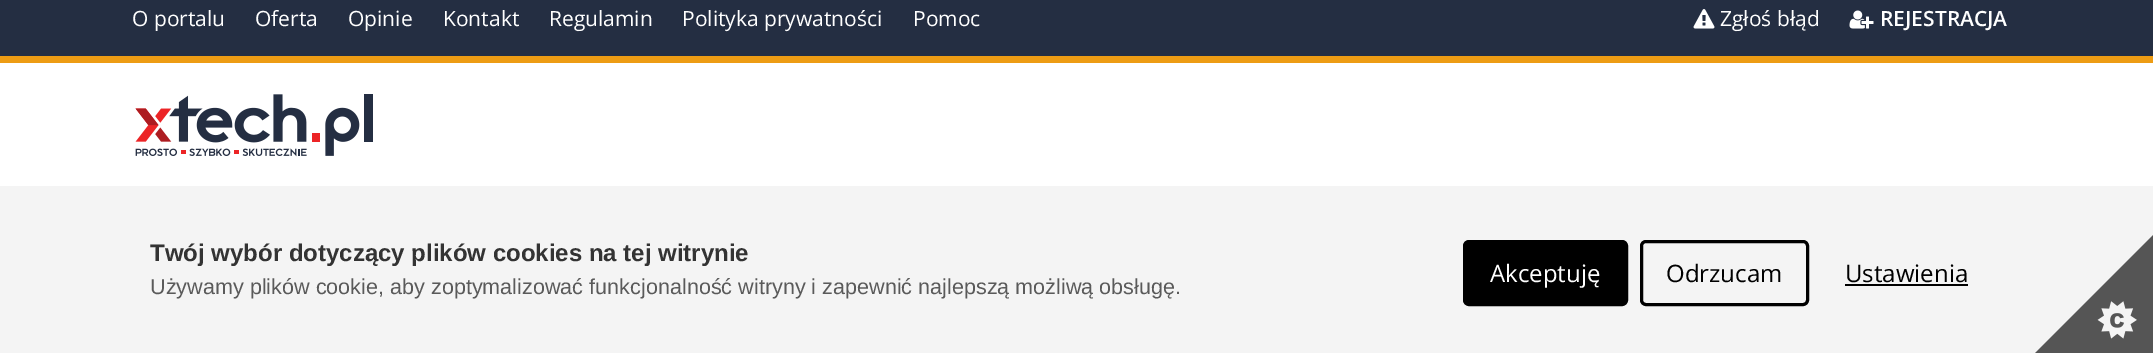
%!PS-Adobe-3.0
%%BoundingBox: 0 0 2153 353
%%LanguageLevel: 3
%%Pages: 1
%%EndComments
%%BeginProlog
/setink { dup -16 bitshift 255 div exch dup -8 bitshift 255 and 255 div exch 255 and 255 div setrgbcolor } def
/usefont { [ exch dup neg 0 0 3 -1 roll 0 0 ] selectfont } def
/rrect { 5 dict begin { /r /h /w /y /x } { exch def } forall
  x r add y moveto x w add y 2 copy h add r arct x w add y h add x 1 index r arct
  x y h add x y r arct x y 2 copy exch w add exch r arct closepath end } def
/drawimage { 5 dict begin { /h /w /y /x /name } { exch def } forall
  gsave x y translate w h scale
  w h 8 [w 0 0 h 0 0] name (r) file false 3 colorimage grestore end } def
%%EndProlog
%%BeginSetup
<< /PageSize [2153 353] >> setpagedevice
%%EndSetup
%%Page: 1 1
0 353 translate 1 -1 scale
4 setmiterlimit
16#FFFFFF setink
0 0 2153 353 rectfill
16#ED9C14 setink
0 56 2153 7 rectfill
16#242E42 setink
0 0 2153 56 rectfill
/OpenSans-Regular 21 usefont
16#FFFFFF setink
[
    [(O portalu) 132 26]
    [(Oferta) 255 26]
    [(Opinie) 348 26]
    [(Kontakt) 443 26]
    [(Regulamin) 549 26]
    [(Polityka prywatności) 682 26]
    [(Pomoc) 913 26]
] { aload pop moveto show } forall
(img1.raw) 1693 9 22 20 drawimage
1720 26 moveto (Zgłoś błąd) show
(img2.raw) 1849 10 25 19 drawimage
/OpenSans-SemiBold 21 usefont
1880 26 moveto (REJESTRACJA) show
(img3.raw) 135 94 238 63 drawimage
16#F4F4F4 setink
0 186 2153 167 rectfill
/LiberationSans-Bold 24 usefont
16#333333 setink
150 261 moveto (Twój wybór dotyczący plików cookies na tej witrynie) show
/LiberationSans-Regular 21.6 usefont
16#5A5A5A setink
150 294 moveto (Używamy plików cookie, aby zoptymalizować funkcjonalność witryny i zapewnić najlepszą możliwą obsługę.) show
16#000000 setink
1464.5 241.5 162 63 4.5 rrect gsave fill grestore
3 setlinewidth
stroke
/OpenSans-Regular 24 usefont
16#FFFFFF setink
1490 282 moveto (Akceptuję) show
16#000000 setink
1641.5 241.5 166 63 4.5 rrect stroke
1666 282 moveto (Odrzucam) show
1845 282 moveto (Ustawienia) show
1845 284 123 2 rectfill
(img4.raw) 2035 235 118 118 drawimage
showpage
%%EOF
